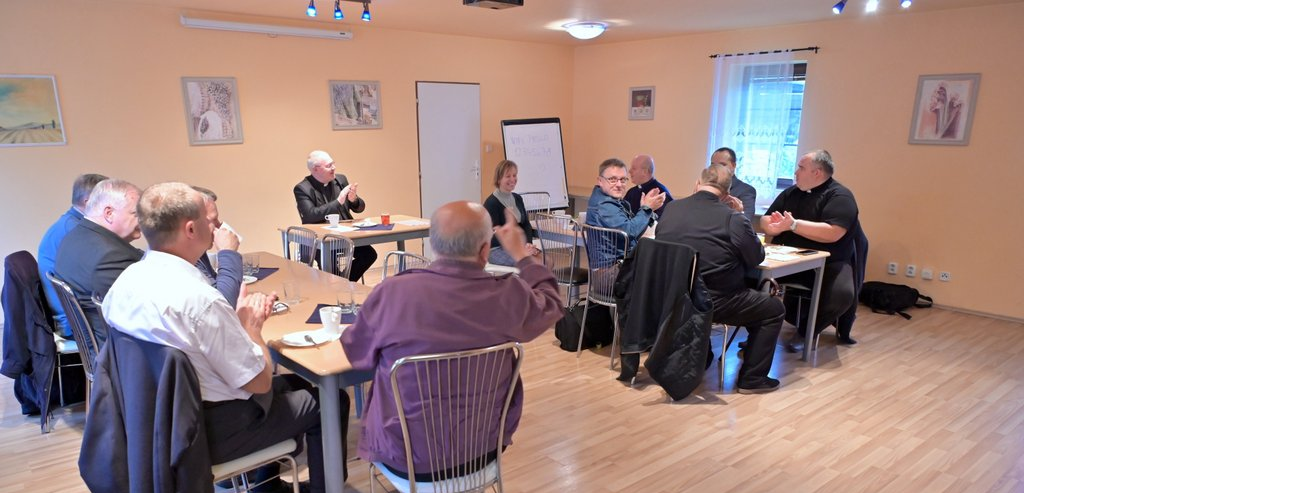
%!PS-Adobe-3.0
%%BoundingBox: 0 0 1301 493
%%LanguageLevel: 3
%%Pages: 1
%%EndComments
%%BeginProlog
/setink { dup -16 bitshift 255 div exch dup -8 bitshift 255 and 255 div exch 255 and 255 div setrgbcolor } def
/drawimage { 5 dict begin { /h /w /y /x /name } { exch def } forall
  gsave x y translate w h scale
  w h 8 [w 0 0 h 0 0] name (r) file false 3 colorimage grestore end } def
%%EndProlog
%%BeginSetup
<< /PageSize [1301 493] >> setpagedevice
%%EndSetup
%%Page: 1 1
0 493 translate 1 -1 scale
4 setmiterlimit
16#FFFFFF setink
0 0 1301 493 rectfill
(img1.raw) 0 0 1024 493 drawimage
showpage
%%EOF
